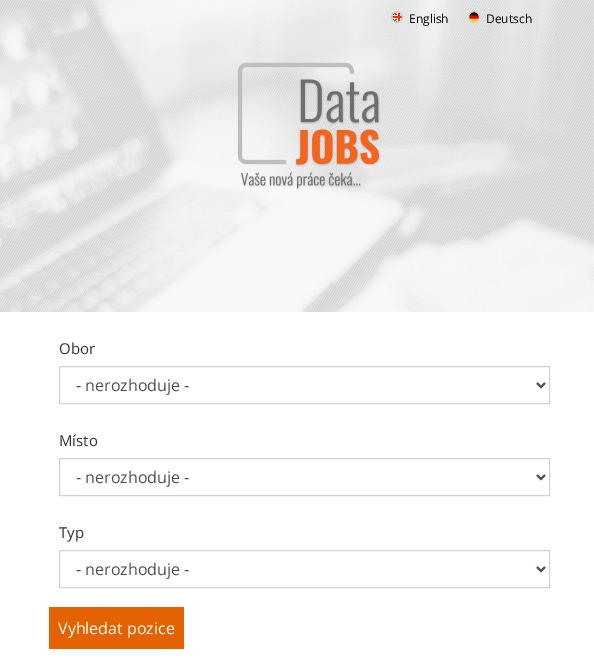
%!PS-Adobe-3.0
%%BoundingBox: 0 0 594 663
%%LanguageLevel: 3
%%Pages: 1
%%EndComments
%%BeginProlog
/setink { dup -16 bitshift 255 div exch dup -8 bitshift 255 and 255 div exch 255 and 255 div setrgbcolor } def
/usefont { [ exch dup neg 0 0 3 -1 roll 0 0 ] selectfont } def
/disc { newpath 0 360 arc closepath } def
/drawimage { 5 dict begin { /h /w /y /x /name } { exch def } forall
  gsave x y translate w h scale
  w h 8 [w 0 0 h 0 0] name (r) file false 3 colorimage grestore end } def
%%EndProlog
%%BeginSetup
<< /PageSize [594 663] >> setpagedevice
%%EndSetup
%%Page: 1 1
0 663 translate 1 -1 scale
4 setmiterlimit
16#FFFFFF setink
0 0 594 663 rectfill
(img1.raw) 0 0 594 312 drawimage
(img2.raw) 391 11 12 12 drawimage
16#CCCCCC setink
397 17 5.5 disc stroke
/OpenSans-Regular 12 usefont
16#000000 setink
409 23 moveto (English) show
(img3.raw) 468 11 12 12 drawimage
16#CCCCCC setink
474 17 5.5 disc stroke
16#000000 setink
486 23 moveto (Deutsch) show
(img4.raw) 237 62 144 128 drawimage
/OpenSans-Regular 15 usefont
16#333333 setink
59 354 moveto (Obor) show
16#CED4DA setink
59.5 366.5 490 37 rectstroke
16#495057 setink
2 setlinewidth
537 383 moveto 541 387 lineto 545 383 lineto stroke
/OpenSans-Regular 16 usefont
76 391 moveto (- nerozhoduje -) show
/OpenSans-Regular 15 usefont
16#333333 setink
59 446 moveto (Místo) show
16#CED4DA setink
1 setlinewidth
59.5 458.5 490 37 rectstroke
16#495057 setink
2 setlinewidth
537 475 moveto 541 479 lineto 545 475 lineto stroke
/OpenSans-Regular 16 usefont
76 483 moveto (- nerozhoduje -) show
/OpenSans-Regular 15 usefont
16#333333 setink
59 538 moveto (Typ) show
16#CED4DA setink
1 setlinewidth
59.5 550.5 490 37 rectstroke
16#495057 setink
2 setlinewidth
537 567 moveto 541 571 lineto 545 567 lineto stroke
/OpenSans-Regular 16 usefont
76 575 moveto (- nerozhoduje -) show
16#E46200 setink
49 607 135 42 rectfill
16#FFFFFF setink
58 634 moveto (Vyhledat pozice) show
showpage
%%EOF
